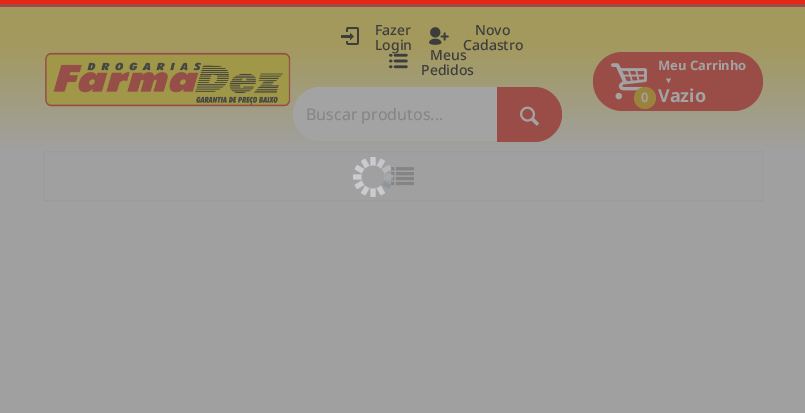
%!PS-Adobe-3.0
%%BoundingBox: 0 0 805 413
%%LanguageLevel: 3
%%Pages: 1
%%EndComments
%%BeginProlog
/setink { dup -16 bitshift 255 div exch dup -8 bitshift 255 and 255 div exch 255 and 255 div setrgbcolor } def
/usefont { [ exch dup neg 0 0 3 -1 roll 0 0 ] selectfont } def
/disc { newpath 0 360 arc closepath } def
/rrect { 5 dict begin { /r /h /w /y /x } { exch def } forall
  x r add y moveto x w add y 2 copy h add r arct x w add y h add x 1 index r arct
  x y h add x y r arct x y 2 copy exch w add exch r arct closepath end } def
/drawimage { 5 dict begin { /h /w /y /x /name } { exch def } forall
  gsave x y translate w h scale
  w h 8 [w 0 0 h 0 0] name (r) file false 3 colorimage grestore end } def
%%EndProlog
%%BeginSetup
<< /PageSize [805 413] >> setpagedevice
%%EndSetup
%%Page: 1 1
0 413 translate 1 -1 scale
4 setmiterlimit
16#A0A0A0 setink
0 0 805 413 rectfill
16#E52717 setink
0 0 805 4 rectfill
16#994D46 setink
0 4 805 3 rectfill
gsave 0 7 moveto 805 7 lineto 805 147 lineto 0 147 lineto closepath clip newpath
<< /ShadingType 2 /ColorSpace /DeviceRGB /Coords [403 7 403 151] /Extend [true true] /Function << /FunctionType 3 /Domain [0 1] /Functions [<< /FunctionType 2 /Domain [0 1] /C0 [0.639 0.6 0.365] /C1 [0.639 0.6 0.365] /N 1 >> << /FunctionType 2 /Domain [0 1] /C0 [0.639 0.6 0.365] /C1 [0.627 0.627 0.627] /N 1 >>] /Bounds [0.25] /Encode [0 1 0 1] >> >> shfill grestore
(img1.raw) 45 52 246 55 drawimage
(img2.raw) 341 27 18 18 drawimage
/NotoSans-Medium 14 usefont
16#3D3D3D setink
375 35 moveto (Fazer) show
375 50 moveto (Login) show
(img3.raw) 429 27 20 18 drawimage
475 35 moveto (Novo) show
463 50 moveto (Cadastro) show
(img4.raw) 389 53 19 16 drawimage
430 60 moveto (Meus) show
421 75 moveto (Pedidos) show
16#A3A3A3 setink
320 87 moveto 533 87 lineto 533 141 lineto 320 141 lineto 305 141 293 129 293 114 curveto 293 99 305 87 320 87 curveto closepath fill
/NotoSans-Regular 16 usefont
16#848484 setink
306 120 moveto (Buscar produtos...) show
16#994D46 setink
497 87 moveto 534.5 87 lineto 549.5 87 562 99.5 562 114.5 curveto 562 129.5 549.5 142 534.5 142 curveto 497 142 lineto closepath fill
(img5.raw) 520 106 19 20 drawimage
593 52 170 59 29.5 rrect fill
(img6.raw) 611 63 36 37 drawimage
/NotoSans-Bold 13 usefont
16#A3A3A3 setink
658 70 moveto (Meu Carrinho) show
668.5 83 moveto 666 78.5 lineto 671 78.5 lineto closepath fill
16#9A843D setink
645 98 11 disc fill
/NotoSans-SemiBold 13 usefont
16#A3A3A3 setink
641 102 moveto (0) show
/NotoSans-Bold 18 usefont
658 102 moveto (Vazio) show
16#9B9B9B setink
43.5 151.5 719 49 rectstroke
(img7.raw) 391 167 23 19 drawimage
(img8.raw) 353 157 40 40 drawimage
showpage
%%EOF
